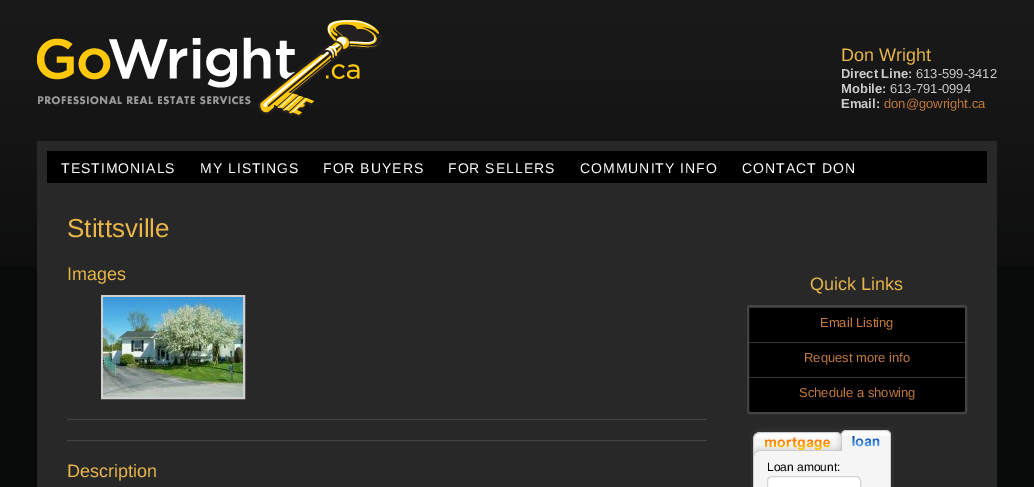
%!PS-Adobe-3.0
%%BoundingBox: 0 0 1034 487
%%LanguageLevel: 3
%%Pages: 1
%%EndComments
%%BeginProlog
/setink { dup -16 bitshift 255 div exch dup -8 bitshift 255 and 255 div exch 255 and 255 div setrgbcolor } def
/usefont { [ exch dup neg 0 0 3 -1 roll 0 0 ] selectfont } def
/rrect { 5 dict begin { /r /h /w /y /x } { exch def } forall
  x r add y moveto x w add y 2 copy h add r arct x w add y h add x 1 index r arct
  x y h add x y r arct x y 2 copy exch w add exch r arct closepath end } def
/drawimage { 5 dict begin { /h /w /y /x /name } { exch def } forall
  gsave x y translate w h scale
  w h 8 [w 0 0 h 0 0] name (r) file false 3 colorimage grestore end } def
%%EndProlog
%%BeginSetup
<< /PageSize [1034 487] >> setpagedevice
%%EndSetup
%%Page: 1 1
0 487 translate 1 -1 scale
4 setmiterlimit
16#090A0A setink
0 0 1034 487 rectfill
(img1.raw) 0 0 1034 266 drawimage
(img2.raw) 37 20 346 98 drawimage
/LiberationSans-Regular 18 usefont
16#EAB748 setink
841 61 moveto (Don Wright) show
/LiberationSans-Bold 13 usefont
16#CCCCCC setink
841 78 moveto (Direct Line:) show
/LiberationSans-Regular 13 usefont
916 78 moveto (613-599-3412) show
/LiberationSans-Bold 13 usefont
841 93 moveto (Mobile:) show
/LiberationSans-Regular 13 usefont
890 93 moveto (613-791-0994) show
/LiberationSans-Bold 13 usefont
841 108 moveto (Email:) show
/LiberationSans-Regular 13 usefont
16#C0793B setink
884 108 moveto (don@gowright.ca) show
16#282828 setink
37 141 960 346 rectfill
16#000000 setink
47 151 940 32 rectfill
/LiberationSans-Regular 14 usefont
16#FFFFFF setink
61 173 moveto 1 0 (TESTIMONIALS) ashow
200 173 moveto 1 0 (MY LISTINGS) ashow
323 173 moveto 1 0 (FOR BUYERS) ashow
448 173 moveto 1 0 (FOR SELLERS) ashow
580 173 moveto 1 0 (COMMUNITY INFO) ashow
742 173 moveto 1 0 (CONTACT DON) ashow
/LiberationSans-Regular 26 usefont
16#EAB748 setink
67 237 moveto (Stittsville) show
/LiberationSans-Regular 18 usefont
67 280 moveto (Images) show
16#CFCFCF setink
2 setlinewidth
102 296 142 102 rectstroke
(img3.raw) 103 297 140 100 drawimage
16#444444 setink
67 419 640 1 rectfill
67 440 640 1 rectfill
16#EAB748 setink
67 477 moveto (Description) show
810 290 moveto (Quick Links) show
16#000000 setink
748 306 218 107 2 rrect gsave fill grestore
16#444444 setink
stroke
16#343434 setink
749 307 216 1 rectfill
/LiberationSans-Regular 13 usefont
16#C0793B setink
820 327 moveto (Email Listing) show
16#343434 setink
749 342 216 1 rectfill
16#C0793B setink
804 362 moveto (Request more info) show
16#343434 setink
749 377 216 1 rectfill
16#C0793B setink
799 397 moveto (Schedule a showing) show
(img4.raw) 750 427 144 30 drawimage
(img5.raw) 750 457 4 30 drawimage
16#F5F5F5 setink
754 457 136 30 rectfill
/LiberationSans-Regular 12 usefont
16#000000 setink
767 471 moveto (Loan amount:) show
16#FFFFFF setink
767.5 476.5 93 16 4.5 rrect gsave fill grestore
16#D5D5D5 setink
1 setlinewidth
stroke
(img6.raw) 890 457 4 30 drawimage
showpage
%%EOF
